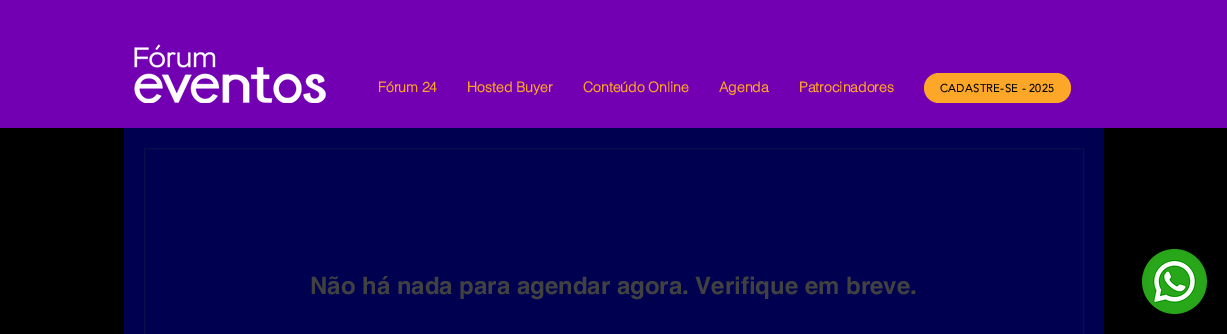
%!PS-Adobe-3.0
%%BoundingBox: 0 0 1227 334
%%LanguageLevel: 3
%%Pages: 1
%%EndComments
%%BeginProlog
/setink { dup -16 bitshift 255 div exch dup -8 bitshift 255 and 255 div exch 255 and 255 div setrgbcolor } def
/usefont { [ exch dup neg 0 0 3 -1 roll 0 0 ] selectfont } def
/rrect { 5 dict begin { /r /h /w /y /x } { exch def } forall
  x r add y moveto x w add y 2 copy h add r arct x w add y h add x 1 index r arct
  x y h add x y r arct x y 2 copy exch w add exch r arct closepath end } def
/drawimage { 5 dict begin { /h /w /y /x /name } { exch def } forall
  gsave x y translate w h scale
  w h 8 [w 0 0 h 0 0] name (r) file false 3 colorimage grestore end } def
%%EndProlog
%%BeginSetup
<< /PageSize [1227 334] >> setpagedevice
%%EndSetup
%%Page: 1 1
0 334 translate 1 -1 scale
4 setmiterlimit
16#000000 setink
0 0 1227 334 rectfill
16#7200B2 setink
0 0 1227 128 rectfill
(img1.raw) 134 44 192 59 drawimage
/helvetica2-Bold 14 usefont
16#FCA228 setink
[
    [(Fórum 24) 378 92]
    [(Hosted Buyer) 467 92]
    [(Conteúdo Online) 583 92]
    [(Agenda) 719 92]
    [(Patrocinadores) 799 92]
] { aload pop moveto show } forall
16#FCA727 setink
924 73 147 30 15 rrect fill
/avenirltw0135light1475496-Bold 11 usefont
16#000000 setink
940 92 moveto 0.5 0 (CADASTRE-SE - 2025) ashow
16#000050 setink
124 128 980 206 rectfill
16#0D0D4D setink
144.5 148.5 939 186 rectstroke
/helvetica-Bold 24 usefont
16#414141 setink
310 294 moveto (Não há nada para agendar agora. Verifique em breve.) show
(img2.raw) 1142 249 65 65 drawimage
showpage
%%EOF
